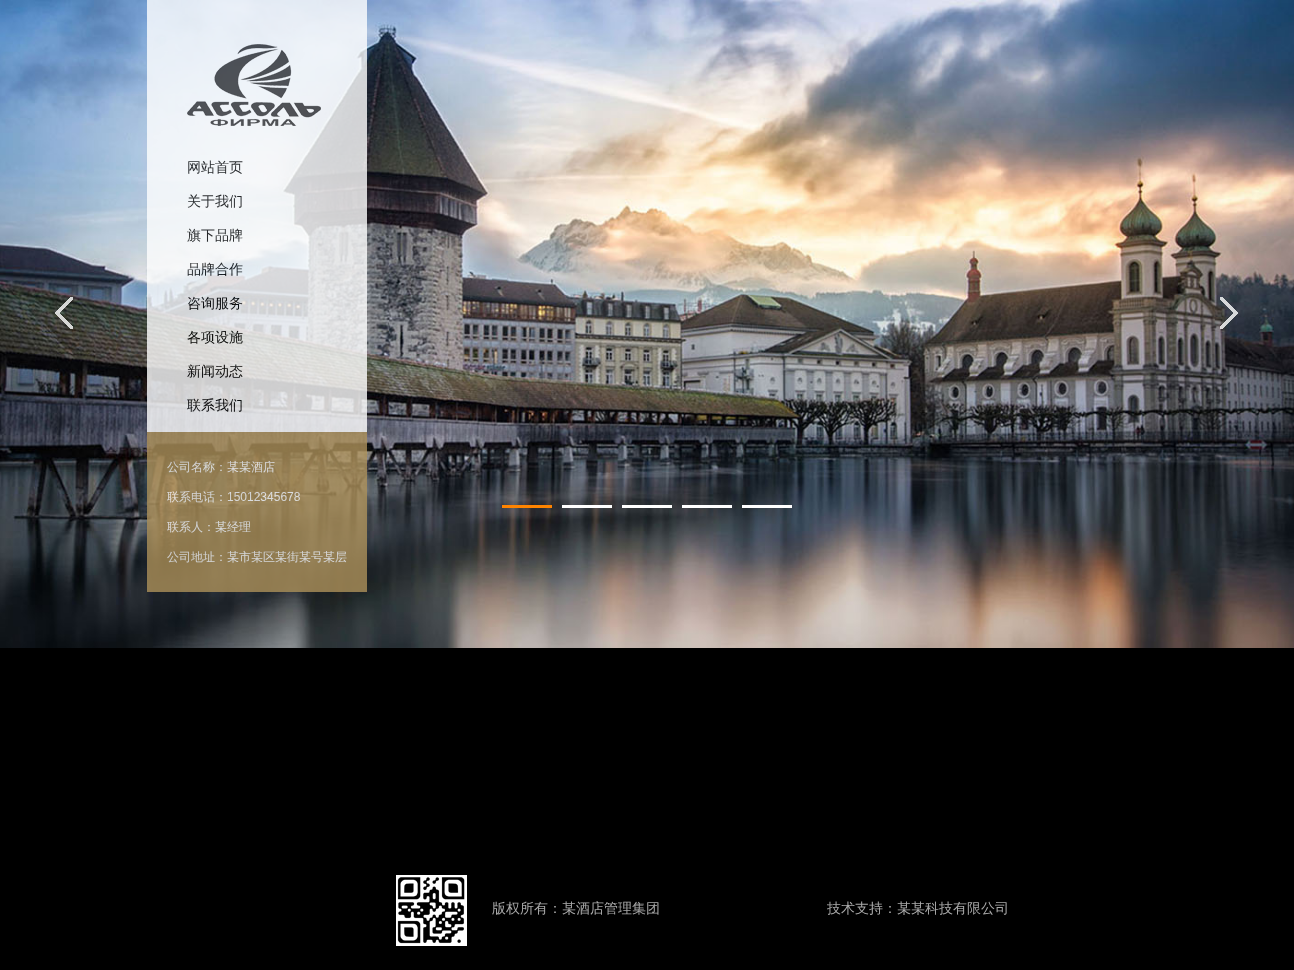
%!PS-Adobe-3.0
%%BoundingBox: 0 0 1294 970
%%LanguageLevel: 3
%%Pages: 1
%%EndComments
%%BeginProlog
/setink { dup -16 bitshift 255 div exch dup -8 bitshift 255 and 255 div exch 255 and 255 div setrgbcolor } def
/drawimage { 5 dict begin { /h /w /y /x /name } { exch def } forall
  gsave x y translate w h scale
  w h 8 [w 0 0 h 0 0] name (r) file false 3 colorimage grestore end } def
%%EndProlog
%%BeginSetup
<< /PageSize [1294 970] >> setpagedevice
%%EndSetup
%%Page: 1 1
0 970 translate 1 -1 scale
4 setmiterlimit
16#FFFFFF setink
0 0 1294 970 rectfill
(img1.raw) 0 0 1294 970 drawimage
showpage
%%EOF
